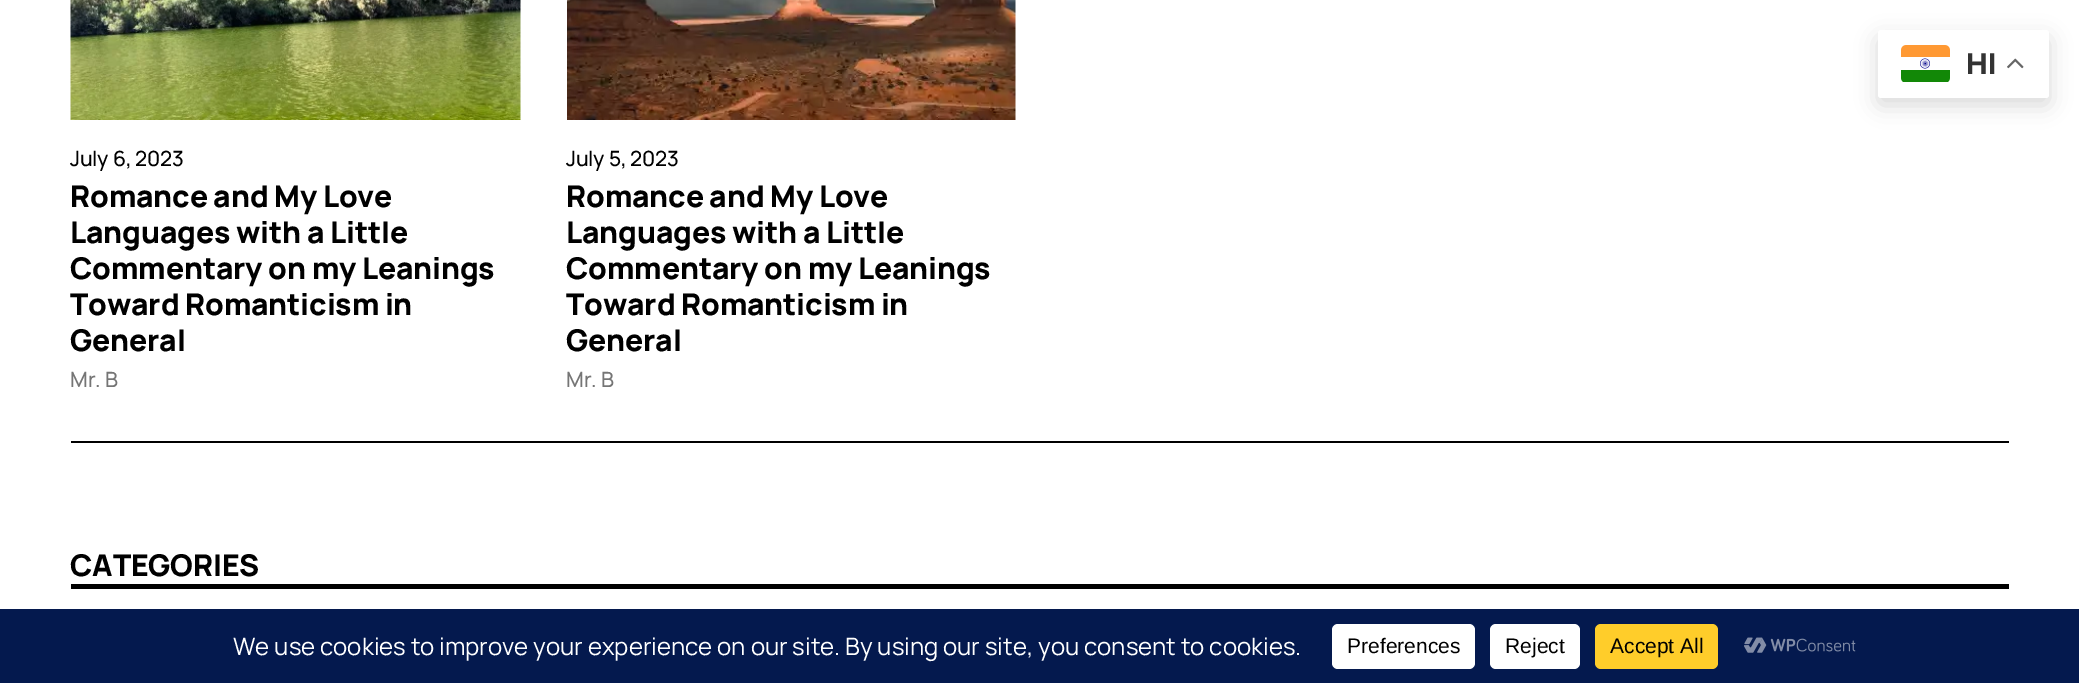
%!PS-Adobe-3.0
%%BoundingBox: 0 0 2079 683
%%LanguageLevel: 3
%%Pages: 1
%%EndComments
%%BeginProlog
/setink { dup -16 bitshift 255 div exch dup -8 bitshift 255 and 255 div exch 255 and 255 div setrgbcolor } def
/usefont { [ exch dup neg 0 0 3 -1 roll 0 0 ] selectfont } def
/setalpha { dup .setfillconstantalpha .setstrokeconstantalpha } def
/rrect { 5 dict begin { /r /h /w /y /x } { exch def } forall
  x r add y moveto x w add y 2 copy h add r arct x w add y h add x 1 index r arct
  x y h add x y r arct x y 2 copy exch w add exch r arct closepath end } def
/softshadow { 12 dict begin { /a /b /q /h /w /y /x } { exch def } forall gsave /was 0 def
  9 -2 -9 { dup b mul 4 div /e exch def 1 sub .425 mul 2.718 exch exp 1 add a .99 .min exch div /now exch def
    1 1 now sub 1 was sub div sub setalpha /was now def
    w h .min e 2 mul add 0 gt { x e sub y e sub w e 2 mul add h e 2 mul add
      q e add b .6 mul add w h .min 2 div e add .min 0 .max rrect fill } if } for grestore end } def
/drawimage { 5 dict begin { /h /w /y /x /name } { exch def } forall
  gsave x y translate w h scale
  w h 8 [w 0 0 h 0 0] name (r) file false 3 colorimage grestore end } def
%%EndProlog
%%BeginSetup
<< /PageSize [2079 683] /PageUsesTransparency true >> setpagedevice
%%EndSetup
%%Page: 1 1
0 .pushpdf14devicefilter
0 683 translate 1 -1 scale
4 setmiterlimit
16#FFFFFF setink
0 0 2079 683 rectfill
16#000000 setink
1878 38 171 67 3 11 0.15 softshadow
16#FFFFFF setink
1878 30 171 68 3 rrect fill
(img1.raw) 1901 45 49 37 drawimage
/LiberationSans-Bold 30 usefont
16#333333 setink
1966 74 moveto -0.15 0 (HI) ashow
(img2.raw) 2007 58 17 11 drawimage
(img3.raw) 70 0 451 120 drawimage
/Manrope-Medium 21 usefont
16#000000 setink
70 166 moveto -0.15 0 (July 6, 2023) ashow
/Manrope-ExtraBold 30 usefont
70 207 moveto -0.15 0 (Romance and My Love) ashow
70 243 moveto -0.15 0 (Languages with a Little) ashow
70 279 moveto -0.15 0 (Commentary on my Leanings) ashow
70 315 moveto -0.15 0 (Toward Romanticism in) ashow
70 351 moveto -0.15 0 (General) ashow
/Manrope-Medium 21 usefont
16#757575 setink
70 387 moveto -0.15 0 (Mr. B) ashow
(img4.raw) 567 0 449 120 drawimage
16#000000 setink
566 166 moveto -0.15 0 (July 5, 2023) ashow
/Manrope-ExtraBold 30 usefont
566 207 moveto -0.15 0 (Romance and My Love) ashow
566 243 moveto -0.15 0 (Languages with a Little) ashow
566 279 moveto -0.15 0 (Commentary on my Leanings) ashow
566 315 moveto -0.15 0 (Toward Romanticism in) ashow
566 351 moveto -0.15 0 (General) ashow
/Manrope-Medium 21 usefont
16#757575 setink
566 387 moveto -0.15 0 (Mr. B) ashow
16#000000 setink
71 441 1938 2 rectfill
71 584 1938 5 rectfill
/Manrope-ExtraBold 30 usefont
70 576 moveto -0.15 0 (CATEGORIES) ashow
16#04194E setink
0 609 2079 74 rectfill
/Manrope-Regular 24 usefont
16#FFFFFF setink
233 655 moveto (We use cookies to improve your experience on our site. By using our site, you consent to cookies.) show
1332 624 143 45 6 rrect fill
/LiberationSans-Regular 21 usefont
16#000000 setink
1347 653 moveto (Preferences) show
16#FFFFFF setink
1490 624 90 45 6 rrect fill
16#000000 setink
1505 653 moveto (Reject) show
16#FFCD2A setink
1595 624 123 45 6 rrect fill
16#000000 setink
1610 653 moveto (Accept All) show
(img5.raw) 1744 637 112 16 drawimage
.poppdf14devicefilter showpage
%%EOF
